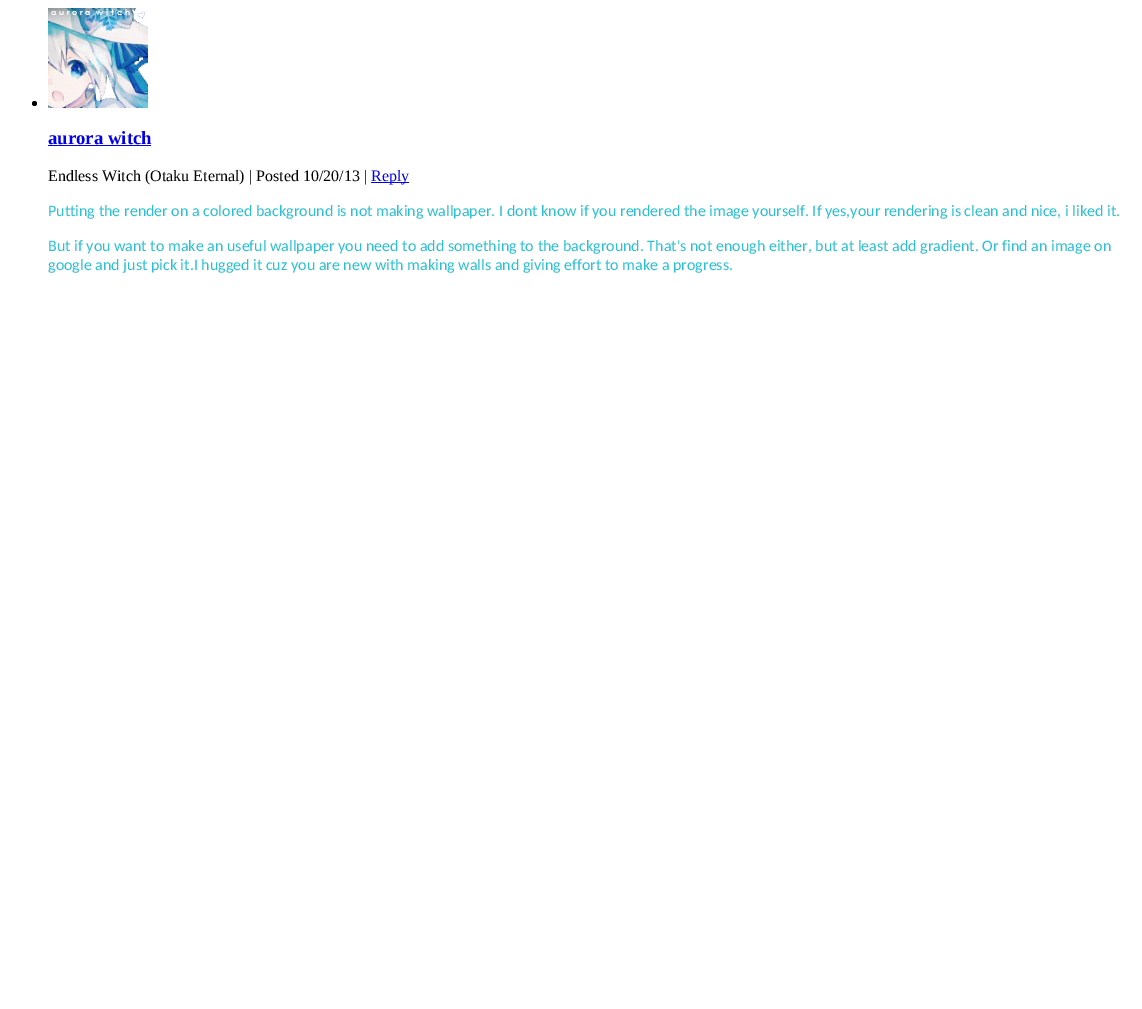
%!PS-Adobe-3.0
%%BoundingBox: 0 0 1142 1009
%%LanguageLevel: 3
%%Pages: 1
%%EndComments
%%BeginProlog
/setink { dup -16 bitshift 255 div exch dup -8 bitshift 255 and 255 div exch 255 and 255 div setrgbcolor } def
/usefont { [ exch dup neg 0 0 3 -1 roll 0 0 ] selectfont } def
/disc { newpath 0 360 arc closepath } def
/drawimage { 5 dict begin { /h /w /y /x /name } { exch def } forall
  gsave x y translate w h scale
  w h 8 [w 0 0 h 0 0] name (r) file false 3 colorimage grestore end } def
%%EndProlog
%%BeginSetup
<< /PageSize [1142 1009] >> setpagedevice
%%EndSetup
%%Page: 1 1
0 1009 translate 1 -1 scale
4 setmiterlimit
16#FFFFFF setink
0 0 1142 1009 rectfill
16#000000 setink
34.5 103.5 2.5 disc fill
(img1.raw) 48 8 100 100 drawimage
/LiberationSerif-Bold 18.75 usefont
16#0000EE setink
48 144 moveto (aurora witch) show
48 145 103 1 rectfill
/LiberationSerif-Regular 16 usefont
16#000000 setink
48 181 moveto (Endless Witch \(Otaku Eternal\) | Posted 10/20/13 |) show
16#0000EE setink
371 182 38 1 rectfill
371 181 moveto (Reply) show
/Carlito-Regular 16 usefont
16#2BBFD1 setink
[
    [(Putting the render on a colored background is not making wallpaper. I dont know if you rendered the image yourself. If yes,your rendering is clean and nice, i liked it.) 48 216]
    [(But if you want to make an useful wallpaper you need to add something to the background. That's not enough either, but at least add gradient. Or find an image on) 48 251]
    [(google and just pick it.I hugged it cuz you are new with making walls and giving effort to make a progress.) 48 270]
] { aload pop moveto show } forall
showpage
%%EOF
